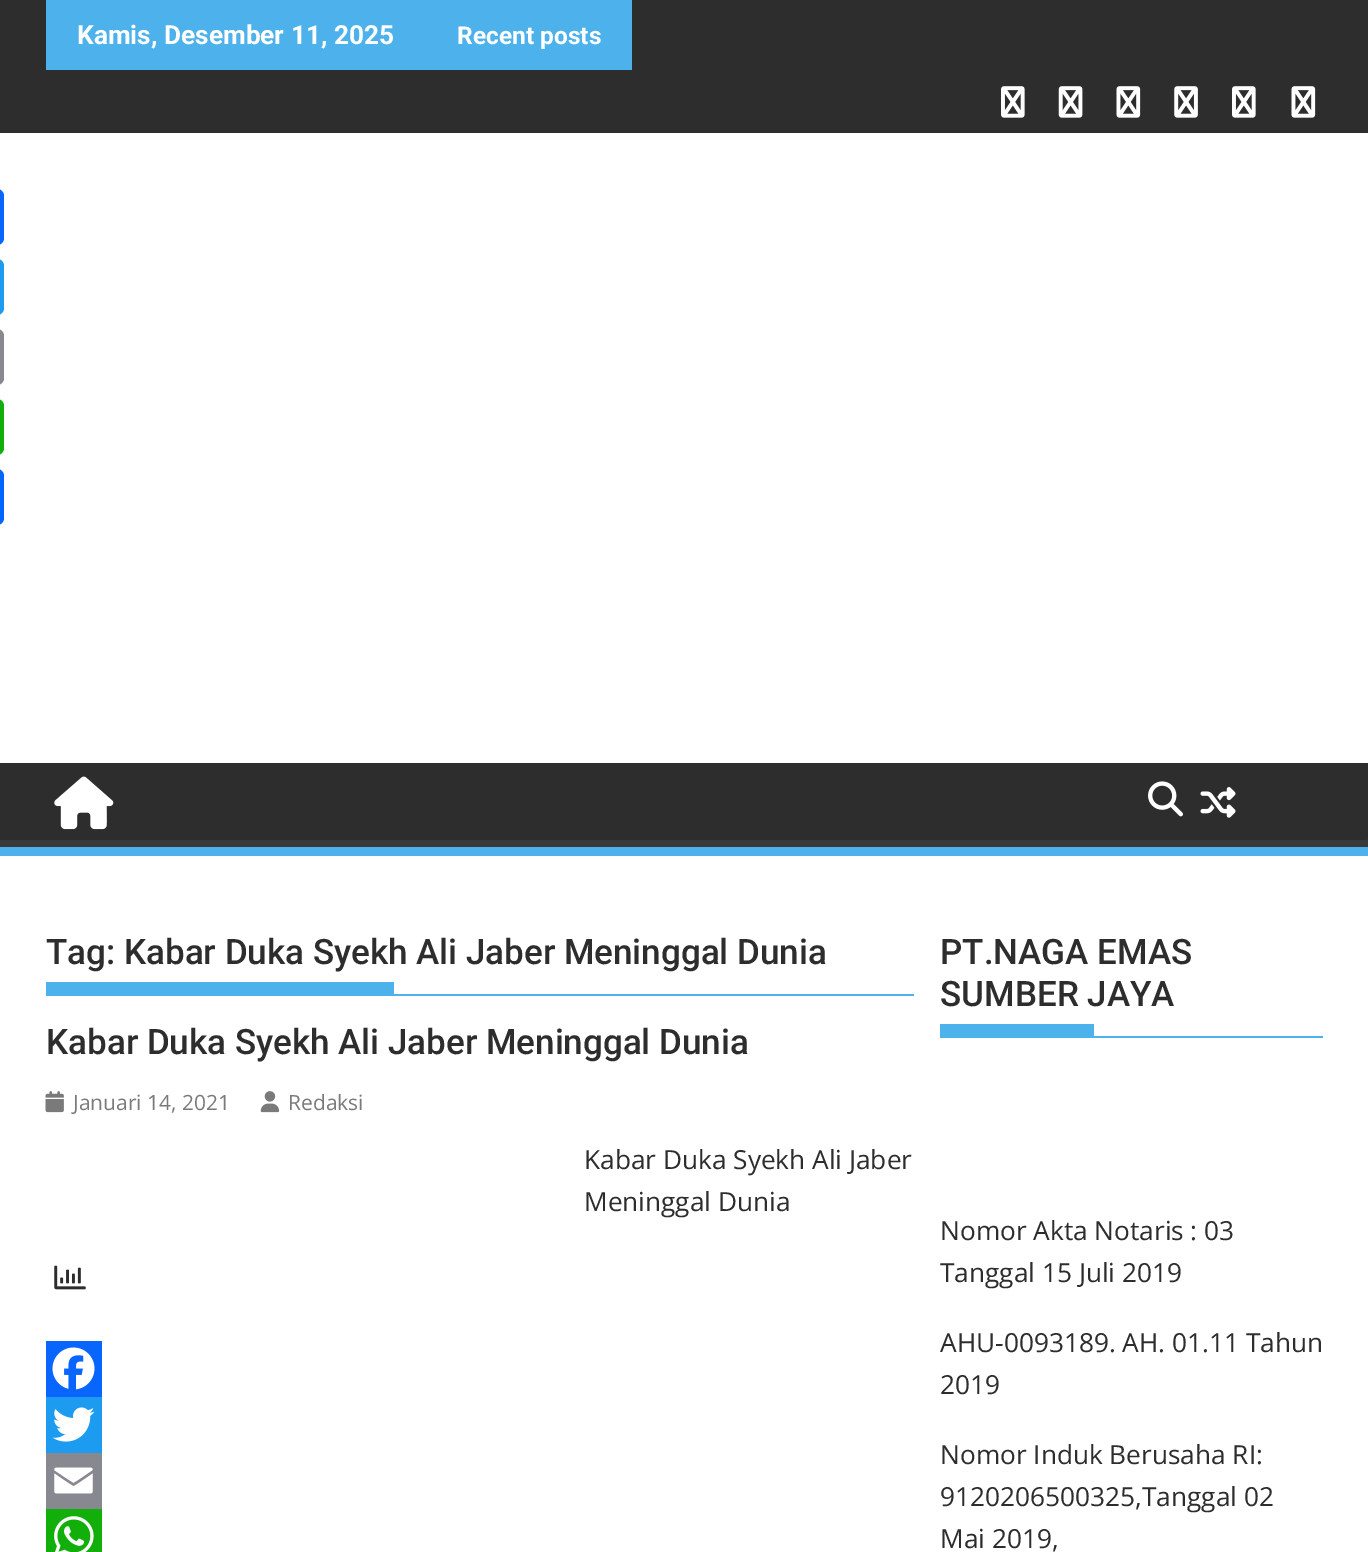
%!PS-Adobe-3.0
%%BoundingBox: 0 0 1368 1552
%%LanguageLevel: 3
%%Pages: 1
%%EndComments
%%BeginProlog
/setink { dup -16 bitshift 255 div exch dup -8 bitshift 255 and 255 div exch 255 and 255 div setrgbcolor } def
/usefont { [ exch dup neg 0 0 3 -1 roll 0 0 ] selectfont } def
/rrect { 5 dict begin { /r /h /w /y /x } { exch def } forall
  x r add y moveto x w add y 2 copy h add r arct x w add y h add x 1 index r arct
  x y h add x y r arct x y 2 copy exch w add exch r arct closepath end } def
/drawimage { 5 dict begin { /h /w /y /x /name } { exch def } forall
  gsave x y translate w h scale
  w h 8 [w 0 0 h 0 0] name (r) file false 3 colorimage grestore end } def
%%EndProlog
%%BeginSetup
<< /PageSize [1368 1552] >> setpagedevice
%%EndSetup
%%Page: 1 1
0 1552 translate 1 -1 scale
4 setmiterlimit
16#FFFFFF setink
0 0 1368 1552 rectfill
16#2D2D2D setink
0 0 1368 133 rectfill
16#4DB2EC setink
46 0 586 70 rectfill
/Roboto-Bold 26.25 usefont
16#FFFFFF setink
77 44 moveto (Kamis, Desember 11, 2025) show
/Roboto-Bold 24.5 usefont
457 44 moveto (Recent posts) show
(img1.raw) 1001 86 24 32 drawimage
(img2.raw) 1058 86 25 32 drawimage
(img3.raw) 1116 86 25 32 drawimage
(img4.raw) 1174 86 24 32 drawimage
(img1.raw) 1232 86 24 32 drawimage
(img3.raw) 1291 86 25 32 drawimage
16#2D2D2D setink
0 763 1368 77 rectfill
gsave
0 763 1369 84 rectclip
16#393939 setink
-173 590 moveto 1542 590 lineto 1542 1020 lineto -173 1020 lineto closepath -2 752 moveto 1367 752 lineto 1368 752 1368 753 1368 754 curveto 1368 838 lineto 1368 839 1368 840 1367 840 curveto -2 840 lineto -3 840 -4 839 -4 838 curveto -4 754 lineto -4 753 -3 752 -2 752 curveto closepath eofill
grestore
16#4DB2EC setink
0 847 1368 9 rectfill
(img5.raw) 54 776 60 54 drawimage
(img6.raw) 1148 781 35 36 drawimage
(img7.raw) 1200 787 36 31 drawimage
16#0866FF setink
-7 189 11 56 7 rrect fill
16#1D9BF0 setink
-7 259 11 56 7 rrect fill
16#888990 setink
-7 329 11 56 7 rrect fill
16#12AF0A setink
-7 399 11 56 7 rrect fill
16#0166FF setink
-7 469 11 56 7 rrect fill
16#4DB2EC setink
46 994 868 2 rectfill
/Roboto-Medium 35 usefont
16#2D2D2D setink
46 964 moveto (Tag: Kabar Duka Syekh Ali Jaber Meninggal Dunia) show
16#4DB2EC setink
46 982 348 12 rectfill
16#2D2D2D setink
46 1054 moveto (Kabar Duka Syekh Ali Jaber Meninggal Dunia) show
(img8.raw) 45 1091 19 22 drawimage
/OpenSans-Regular 21 usefont
16#7A7A7A setink
73 1110 moveto (Januari 14, 2021) show
(img9.raw) 260 1091 20 22 drawimage
288 1110 moveto (Redaksi) show
/OpenSans-Regular 26.25 usefont
16#2D2D2D setink
584 1169 moveto (Kabar Duka Syekh Ali Jaber) show
584 1211 moveto (Meninggal Dunia) show
(img10.raw) 54 1265 32 25 drawimage
16#0866FF setink
46 1341 56 56 rectfill
(img11.raw) 52 1347 43 43 drawimage
16#1D9BF0 setink
46 1397 56 56 rectfill
(img12.raw) 52 1407 43 35 drawimage
16#888990 setink
46 1453 56 56 rectfill
(img13.raw) 54 1467 39 27 drawimage
16#12AF0A setink
46 1509 56 43 rectfill
(img14.raw) 54 1516 40 36 drawimage
16#4DB2EC setink
940 1036 383 2 rectfill
/Roboto-Medium 35 usefont
16#2D2D2D setink
940 964 moveto (PT.NAGA EMAS) show
940 1006 moveto (SUMBER JAYA) show
16#4DB2EC setink
940 1024 154 12 rectfill
/OpenSans-Regular 26.25 usefont
16#2D2D2D setink
[
    [(Nomor Akta Notaris : 03) 940 1240]
    [(Tanggal 15 Juli 2019) 940 1282]
    [(AHU-0093189. AH. 01.11 Tahun) 940 1352]
    [(2019) 940 1394]
    [(Nomor Induk Berusaha RI:) 940 1464]
    [(9120206500325,Tanggal 02) 940 1506]
    [(Mai 2019,) 940 1548]
] { aload pop moveto show } forall
showpage
%%EOF
